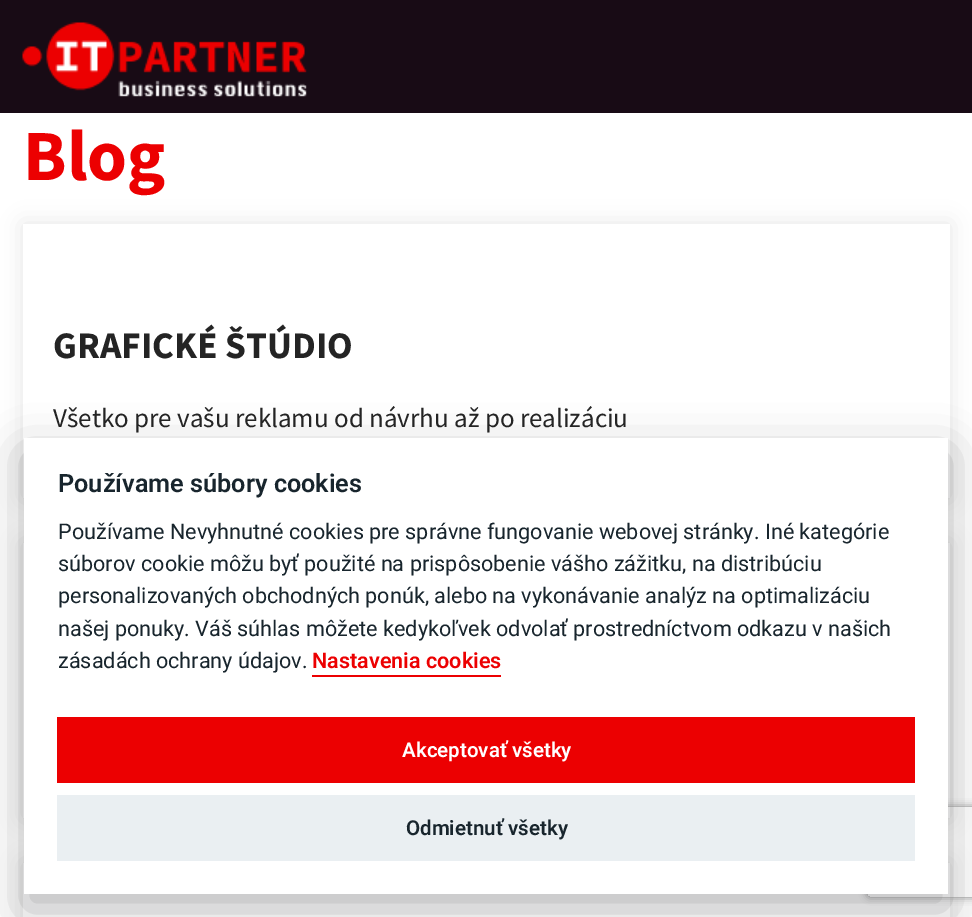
%!PS-Adobe-3.0
%%BoundingBox: 0 0 972 917
%%LanguageLevel: 3
%%Pages: 1
%%EndComments
%%BeginProlog
/setink { dup -16 bitshift 255 div exch dup -8 bitshift 255 and 255 div exch 255 and 255 div setrgbcolor } def
/usefont { [ exch dup neg 0 0 3 -1 roll 0 0 ] selectfont } def
/setalpha { dup .setfillconstantalpha .setstrokeconstantalpha } def
/rrect { 5 dict begin { /r /h /w /y /x } { exch def } forall
  x r add y moveto x w add y 2 copy h add r arct x w add y h add x 1 index r arct
  x y h add x y r arct x y 2 copy exch w add exch r arct closepath end } def
/softshadow { 12 dict begin { /a /b /q /h /w /y /x } { exch def } forall gsave /was 0 def
  9 -2 -9 { dup b mul 4 div /e exch def 1 sub .425 mul 2.718 exch exp 1 add a .99 .min exch div /now exch def
    1 1 now sub 1 was sub div sub setalpha /was now def
    w h .min e 2 mul add 0 gt { x e sub y e sub w e 2 mul add h e 2 mul add
      q e add b .6 mul add w h .min 2 div e add .min 0 .max rrect fill } if } for grestore end } def
/drawimage { 5 dict begin { /h /w /y /x /name } { exch def } forall
  gsave x y translate w h scale
  w h 8 [w 0 0 h 0 0] name (r) file false 3 colorimage grestore end } def
%%EndProlog
%%BeginSetup
<< /PageSize [972 917] /PageUsesTransparency true >> setpagedevice
%%EndSetup
%%Page: 1 1
0 .pushpdf14devicefilter
0 917 translate 1 -1 scale
4 setmiterlimit
16#FFFFFF setink
0 0 972 917 rectfill
16#180B15 setink
0 0 972 113 rectfill
(img1.raw) 22 22 285 75 drawimage
/SourceSansPro-Bold 72 usefont
16#EC0001 setink
23 180 moveto (Blog) show
16#000000 setink
23 224 927 274 0 11 0.1 softshadow
16#FFFFFF setink
23 224 927 274 rectfill
/SourceSansPro-Bold 37.5 usefont
16#242424 setink
53 358 moveto (GRAFICKÉ ŠTÚDIO) show
/SourceSansPro-Regular 27 usefont
53 427 moveto (Všetko pre vašu reklamu od návrhu až po realizáciu) show
16#000000 setink
23 543 927 275 0 11 0.1 softshadow
16#FFFFFF setink
23 543 927 275 rectfill
16#000000 setink
23 863 927 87 0 11 0.1 softshadow
16#FFFFFF setink
23 863 927 54 rectfill
16#020203 setink
24 453 924 456 0 22.5 0.28 softshadow
gsave
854 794 moveto 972 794 lineto 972 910 lineto 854 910 lineto closepath 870 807 moveto 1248 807 lineto 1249.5 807 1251 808.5 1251 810 curveto 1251 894 lineto 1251 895.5 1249.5 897 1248 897 curveto 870 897 lineto 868.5 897 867 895.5 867 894 curveto 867 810 lineto 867 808.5 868.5 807 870 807 curveto closepath eoclip newpath
16#808080 setink
867 807 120 90 3 4 1 softshadow
grestore
16#FFFFFF setink
24 438 924 456 rectfill
/Roboto-SemiBold 25.25 usefont
16#18252D setink
58 492 moveto (Používame súbory cookies) show
/Roboto-Regular 21.6 usefont
[
    [(Používame Nevyhnutné cookies pre správne fungovanie webovej stránky. Iné kategórie) 58 539]
    [(súborov cookie môžu byť použité na prispôsobenie vášho zážitku, na distribúciu) 58 571]
    [(personalizovaných obchodných ponúk, alebo na vykonávanie analýz na optimalizáciu) 58 603]
    [(našej ponuky. Váš súhlas môžete kedykoľvek odvolať prostredníctvom odkazu v našich) 58 636]
    [(zásadách ochrany údajov.) 58 668]
] { aload pop moveto show } forall
/Roboto-SemiBold 21.6 usefont
16#EC0001 setink
312 668 moveto (Nastavenia cookies) show
312 675 189 2 rectfill
57 717 858 66 rectfill
/Roboto-SemiBold 20.5 usefont
16#FFFFFF setink
402 757 moveto (Akceptovať všetky) show
16#EAEFF2 setink
57 795 858 66 rectfill
16#18252D setink
406 835 moveto (Odmietnuť všetky) show
.poppdf14devicefilter showpage
%%EOF
